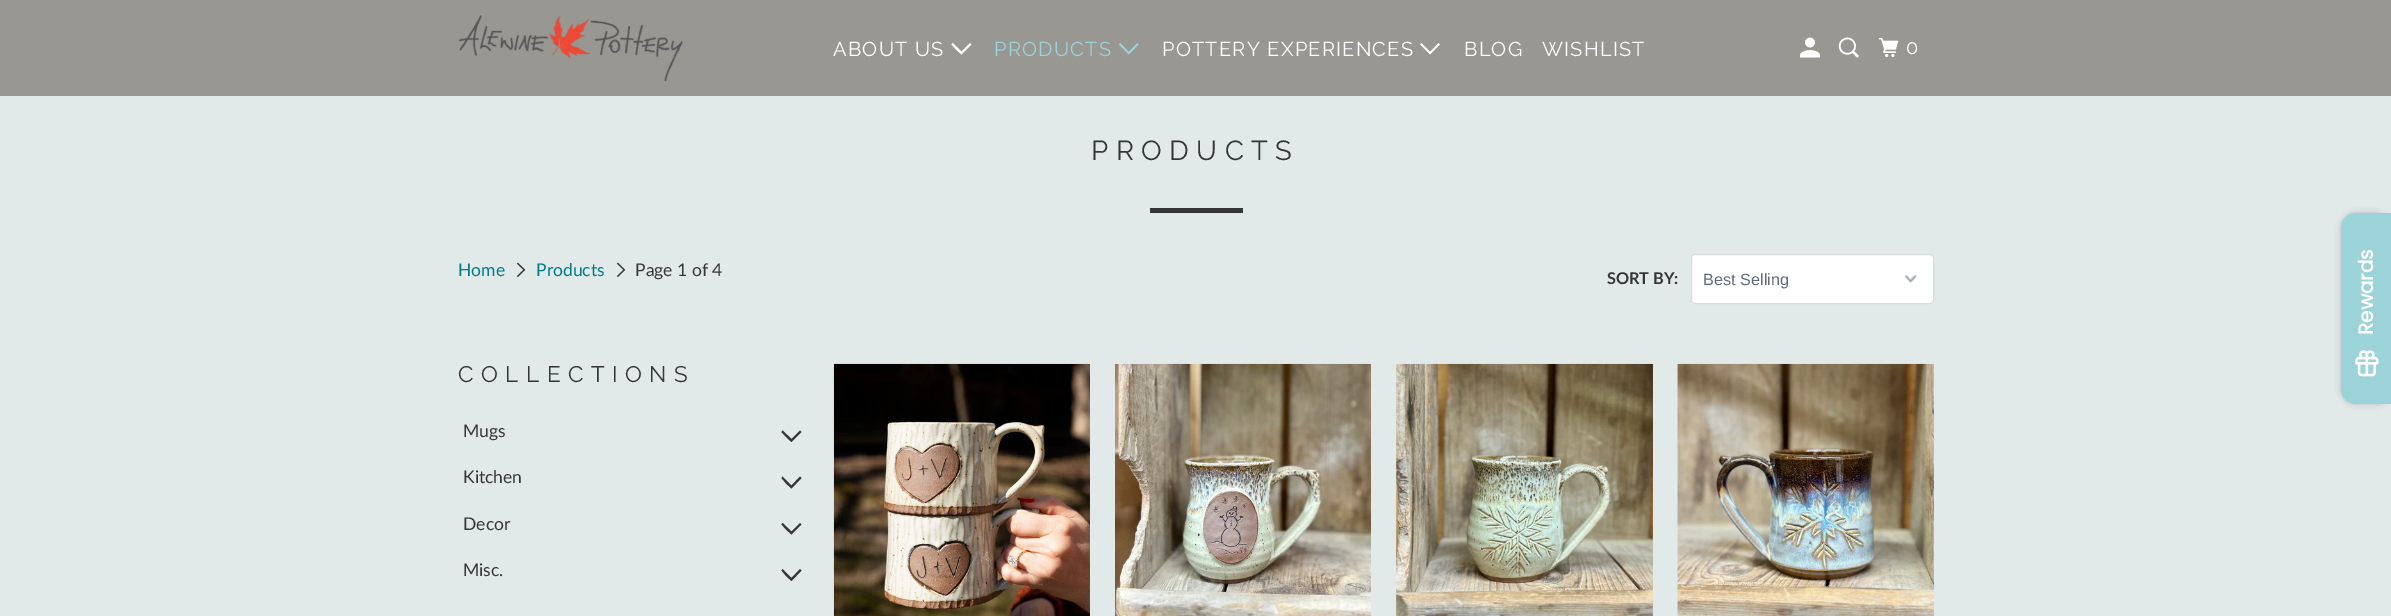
%!PS-Adobe-3.0
%%BoundingBox: 0 0 2391 616
%%LanguageLevel: 3
%%Pages: 1
%%EndComments
%%BeginProlog
/setink { dup -16 bitshift 255 div exch dup -8 bitshift 255 and 255 div exch 255 and 255 div setrgbcolor } def
/usefont { [ exch dup neg 0 0 3 -1 roll 0 0 ] selectfont } def
/setalpha { dup .setfillconstantalpha .setstrokeconstantalpha } def
/rrect { 5 dict begin { /r /h /w /y /x } { exch def } forall
  x r add y moveto x w add y 2 copy h add r arct x w add y h add x 1 index r arct
  x y h add x y r arct x y 2 copy exch w add exch r arct closepath end } def
/softshadow { 12 dict begin { /a /b /q /h /w /y /x } { exch def } forall gsave /was 0 def
  9 -2 -9 { dup b mul 4 div /e exch def 1 sub .425 mul 2.718 exch exp 1 add a .99 .min exch div /now exch def
    1 1 now sub 1 was sub div sub setalpha /was now def
    w h .min e 2 mul add 0 gt { x e sub y e sub w e 2 mul add h e 2 mul add
      q e add b .6 mul add w h .min 2 div e add .min 0 .max rrect fill } if } for grestore end } def
/drawimage { 5 dict begin { /h /w /y /x /name } { exch def } forall
  gsave x y translate w h scale
  w h 8 [w 0 0 h 0 0] name (r) file false 3 colorimage grestore end } def
%%EndProlog
%%BeginSetup
<< /PageSize [2391 616] /PageUsesTransparency true >> setpagedevice
%%EndSetup
%%Page: 1 1
0 .pushpdf14devicefilter
0 616 translate 1 -1 scale
4 setmiterlimit
16#E2EAE9 setink
0 0 2391 616 rectfill
16#989791 setink
0 0 2391 96 rectfill
(img1.raw) 458 15 225 67 drawimage
/Raleway-Regular 20 usefont
16#FFFFFF setink
833 56 moveto 1.25 0 (ABOUT US) ashow
956 49.5 moveto 951.5 44.5 lineto 952.5 43 lineto 961.5 51.5 lineto 970 43 lineto 971.5 44.5 lineto 961.5 54.5 lineto closepath fill
16#9BD3D8 setink
994 56 moveto 1.25 0 (PRODUCTS) ashow
(img2.raw) 1119 43 20 12 drawimage
16#FFFFFF setink
1162 56 moveto 1.25 0 (POTTERY EXPERIENCES) ashow
(img3.raw) 1420 43 20 12 drawimage
1464 56 moveto 1.25 0 (BLOG) ashow
1542 56 moveto 1.25 0 (WISHLIST) ashow
(img4.raw) 1800 37 20 21 drawimage
(img5.raw) 1838 37 21 21 drawimage
(img6.raw) 1878 37 21 20 drawimage
1906 54 moveto 1.25 0 (0) ashow
/Raleway-Regular 27.5 usefont
16#363636 setink
1091 160 moveto 7.5 0 (PRODUCTS) ashow
1150 208 93 5 rectfill
/Lato-Regular 17.5 usefont
16#007A87 setink
458 276 moveto (Home) show
(img7.raw) 516 262 10 16 drawimage
536 276 moveto (Products) show
(img7.raw) 616 262 10 16 drawimage
16#363636 setink
635 276 moveto (Page 1 of 4) show
/Lato-Bold 16.25 usefont
1607 284 moveto (SORT BY:) show
16#FFFFFF setink
1691 254 243 50 4 rrect fill
(img8.raw) 1904 275 13 8 drawimage
16#D9DBDC setink
1691.5 254.5 242 49 3.5 rrect stroke
/LiberationSans-Regular 16.25 usefont
16#5F6A7D setink
1703 285 moveto (Best Selling) show
/Raleway-Regular 22.5 usefont
16#363636 setink
458 382 moveto 7.5 0 (COLLECTIONS) ashow
/Lato-Regular 17.5 usefont
463 437 moveto (Mugs) show
786 437 moveto 781.5 432 lineto 782.5 430.5 lineto 791.5 439 lineto 800 430.5 lineto 801.5 432 lineto 791.5 442 lineto closepath 786 483.5 moveto 781.5 478 lineto 782.5 476.5 lineto 791.5 485.5 lineto 800 476.5 lineto 801.5 478 lineto 791.5 488.5 lineto closepath fill
463 483 moveto (Kitchen) show
463 530 moveto (Decor) show
786 529.5 moveto 781.5 524.5 lineto 782.5 523 lineto 791.5 531.5 lineto 800 523 lineto 801.5 524.5 lineto 791.5 534.5 lineto closepath 786 576 moveto 781.5 570.5 lineto 782.5 569 lineto 791.5 578 lineto 800 569 lineto 801.5 570.5 lineto 791.5 581 lineto closepath fill
463 576 moveto (Misc.) show
(img9.raw) 833 363 257 253 drawimage
(img10.raw) 1115 363 256 253 drawimage
(img11.raw) 1396 363 257 253 drawimage
(img12.raw) 1677 363 257 253 drawimage
16#000000 setink
2341 213 50 191 15 3 0.2 softshadow
16#9BD3D8 setink
2356 213 moveto 2391 213 lineto 2391 404 lineto 2356 404 lineto 2347.5 404 2341 397.5 2341 389 curveto 2341 228 lineto 2341 219.5 2347.5 213 2356 213 curveto closepath fill
/Poppins-Bold 20 usefont
16#FFFFFF setink
gsave 2373 335 translate -90 rotate 0 0 moveto (Rewards) show grestore
(img13.raw) 2355 350 24 27 drawimage
.poppdf14devicefilter showpage
%%EOF
